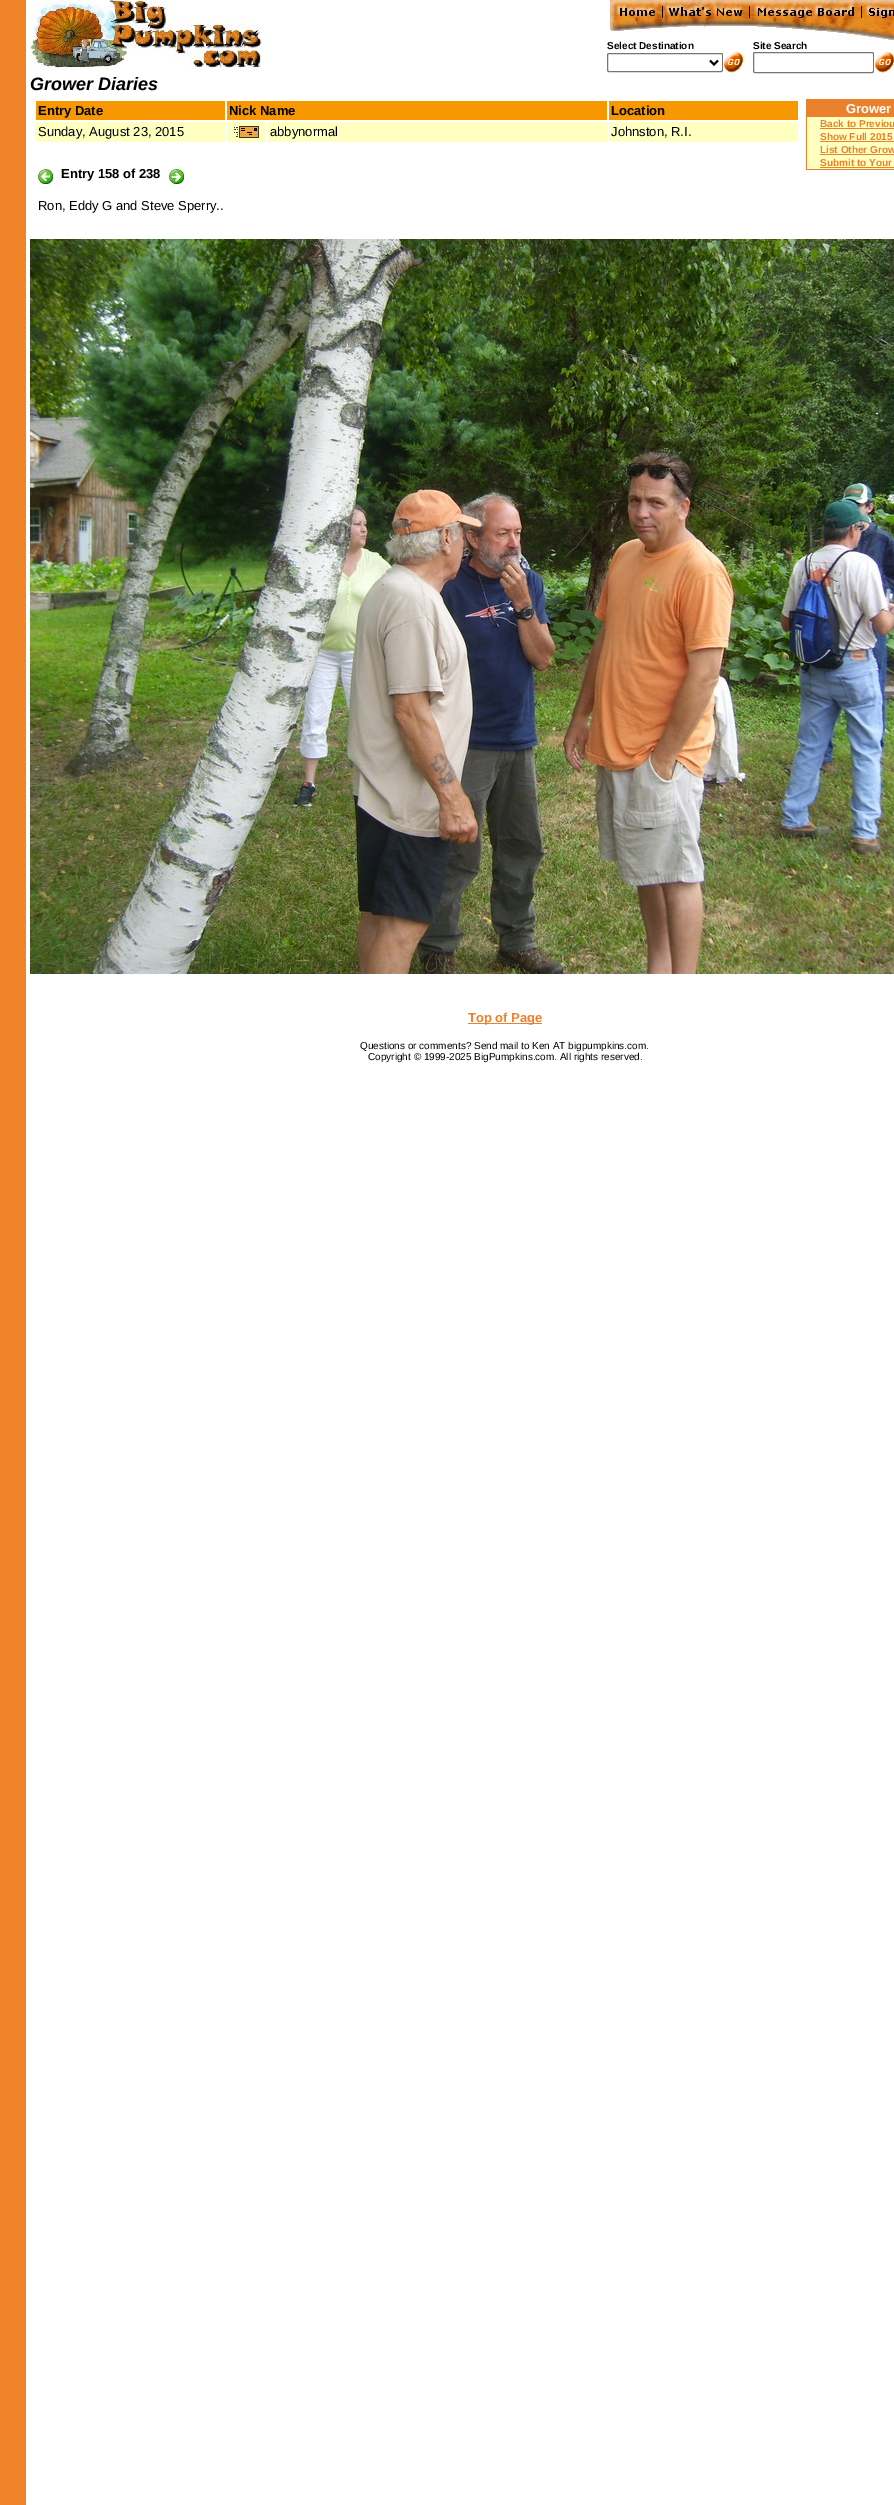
%!PS-Adobe-3.0
%%BoundingBox: 0 0 894 2505
%%LanguageLevel: 3
%%Pages: 1
%%EndComments
%%BeginProlog
/setink { dup -16 bitshift 255 div exch dup -8 bitshift 255 and 255 div exch 255 and 255 div setrgbcolor } def
/usefont { [ exch dup neg 0 0 3 -1 roll 0 0 ] selectfont } def
/rrect { 5 dict begin { /r /h /w /y /x } { exch def } forall
  x r add y moveto x w add y 2 copy h add r arct x w add y h add x 1 index r arct
  x y h add x y r arct x y 2 copy exch w add exch r arct closepath end } def
/drawimage { 5 dict begin { /h /w /y /x /name } { exch def } forall
  gsave x y translate w h scale
  w h 8 [w 0 0 h 0 0] name (r) file false 3 colorimage grestore end } def
%%EndProlog
%%BeginSetup
<< /PageSize [894 2505] >> setpagedevice
%%EndSetup
%%Page: 1 1
0 2505 translate 1 -1 scale
4 setmiterlimit
16#FFFFFF setink
0 0 894 2505 rectfill
16#EF8429 setink
0 0 26 2505 rectfill
(img1.raw) 30 0 232 70 drawimage
(img2.raw) 610 0 284 40 drawimage
/LiberationSans-Bold 10 usefont
16#000000 setink
607 49 moveto (Select Destination) show
753 49 moveto (Site Search) show
16#767676 setink
607.5 53.5 115 18 1.5 rrect stroke
16#000000 setink
2 setlinewidth
710 60.5 moveto 714 64.5 lineto 718 60.5 lineto stroke
(img3.raw) 723 52 20 21 drawimage
16#767676 setink
1 setlinewidth
753.5 52.5 120 20 1.5 rrect stroke
(img3.raw) 874 52 20 21 drawimage
/LiberationSans-BoldItalic 18 usefont
16#000000 setink
30 90 moveto (Grower Diaries) show
16#F89800 setink
36 101 189 19 rectfill
/LiberationSans-Bold 13 usefont
16#000000 setink
38 115 moveto (Entry Date) show
16#F89800 setink
227 101 380 19 rectfill
16#000000 setink
229 115 moveto (Nick Name) show
16#F89800 setink
609 101 189 19 rectfill
16#000000 setink
611 115 moveto (Location) show
16#FFFFC0 setink
36 122 189 20 rectfill
/LiberationSans-Regular 13 usefont
16#000000 setink
38 136 moveto (Sunday, August 23, 2015) show
16#FFFFC0 setink
227 122 39 20 rectfill
(img4.raw) 234 126 25 12 drawimage
268 122 339 20 rectfill
16#000000 setink
270 136 moveto (abbynormal) show
16#FFFFC0 setink
609 122 189 20 rectfill
16#000000 setink
611 136 moveto (Johnston, R.I.) show
(img5.raw) 38 169 15 15 drawimage
/LiberationSans-Bold 13 usefont
61 178 moveto (Entry 158 of 238) show
(img6.raw) 169 169 15 15 drawimage
16#EB812D setink
806 99 88 71 rectfill
16#FFFFFF setink
846 113 moveto (Grower) show
16#FFFFC0 setink
807 117 12 52 rectfill
819 117 75 52 rectfill
/LiberationSans-Bold 10 usefont
16#EB812D setink
820 127 moveto (Back to Previou) show
820 128 74 1 rectfill
820 140 moveto (Show Full 2015) show
820 141 74 1 rectfill
820 153 moveto (List Other Grow) show
820 154 74 1 rectfill
820 166 moveto (Submit to Your) show
820 167 74 1 rectfill
/LiberationSans-Regular 13 usefont
16#000000 setink
38 210 moveto (Ron, Eddy G and Steve Sperry..) show
(img7.raw) 30 239 864 735 drawimage
16#EB812D setink
468 1023 74 1 rectfill
/LiberationSans-Bold 13 usefont
468 1022 moveto (Top of Page) show
/LiberationSans-Regular 10 usefont
16#000000 setink
360 1049 moveto (Questions or comments? Send mail to Ken AT bigpumpkins.com.) show
368 1060 moveto (Copyright © 1999-2025 BigPumpkins.com. All rights reserved.) show
showpage
%%EOF
